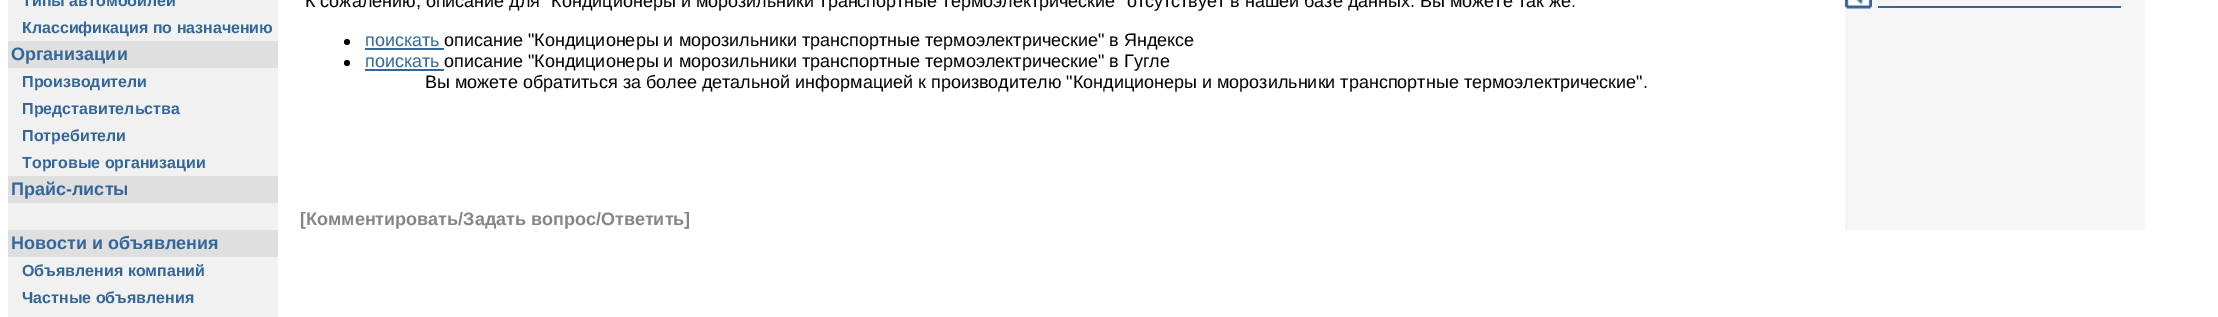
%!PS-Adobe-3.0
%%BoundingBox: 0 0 2218 317
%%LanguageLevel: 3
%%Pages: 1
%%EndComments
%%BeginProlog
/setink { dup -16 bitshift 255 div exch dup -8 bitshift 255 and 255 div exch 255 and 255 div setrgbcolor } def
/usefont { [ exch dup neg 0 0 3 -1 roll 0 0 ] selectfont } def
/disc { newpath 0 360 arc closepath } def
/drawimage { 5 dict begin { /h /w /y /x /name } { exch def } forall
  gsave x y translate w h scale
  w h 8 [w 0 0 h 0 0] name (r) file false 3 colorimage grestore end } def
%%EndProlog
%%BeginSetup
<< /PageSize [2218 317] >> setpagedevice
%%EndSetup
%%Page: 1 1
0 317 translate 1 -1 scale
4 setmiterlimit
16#FFFFFF setink
0 0 2218 317 rectfill
16#F1F1F1 setink
8 0 270 317 rectfill
/LiberationSans-Bold 16 usefont
16#336699 setink
22 6 moveto (Типы автомобилей) show
22 33 moveto (Классификация по назначению) show
16#DFDFDF setink
8 41 270 27 rectfill
/LiberationSans-Bold 18 usefont
16#336699 setink
11 60 moveto (Организации) show
/LiberationSans-Bold 16 usefont
[
    [(Производители) 22 87]
    [(Представительства) 22 114]
    [(Потребители) 22 141]
    [(Торговые организации) 22 168]
] { aload pop moveto show } forall
16#DFDFDF setink
8 176 270 27 rectfill
/LiberationSans-Bold 18 usefont
16#336699 setink
11 195 moveto (Прайс-листы) show
16#DFDFDF setink
8 230 270 27 rectfill
16#336699 setink
11 249 moveto (Новости и объявления) show
/LiberationSans-Bold 16 usefont
22 276 moveto (Объявления компаний) show
22 303 moveto (Частные объявления) show
/LiberationSans-Regular 18 usefont
16#000000 setink
305 7 moveto (К сожалению, описание для "Кондиционеры и морозильники транспортные термоэлектрические" отсутствует в нашей базе данных. Вы можете так же:) show
347 42 3 disc fill
16#336699 setink
365 46 moveto (поискать) show
365 48 79 2 rectfill
16#000000 setink
444 46 moveto (описание "Кондиционеры и морозильники транспортные термоэлектрические" в Яндексе) show
347 63 3 disc fill
16#336699 setink
365 67 moveto (поискать) show
365 69 79 2 rectfill
16#000000 setink
444 67 moveto (описание "Кондиционеры и морозильники транспортные термоэлектрические" в Гугле) show
425 88 moveto (Вы можете обратиться за более детальной информацией к производителю "Кондиционеры и морозильники транспортные термоэлектрические".) show
/LiberationSans-Bold 18 usefont
16#858585 setink
300 225 moveto ([Комментировать/Задать вопрос/Ответить]) show
16#F5F5F5 setink
1845 0 300 230 rectfill
(img1.raw) 1845 0 27 9 drawimage
16#336699 setink
1878 6 243 2 rectfill
showpage
%%EOF
